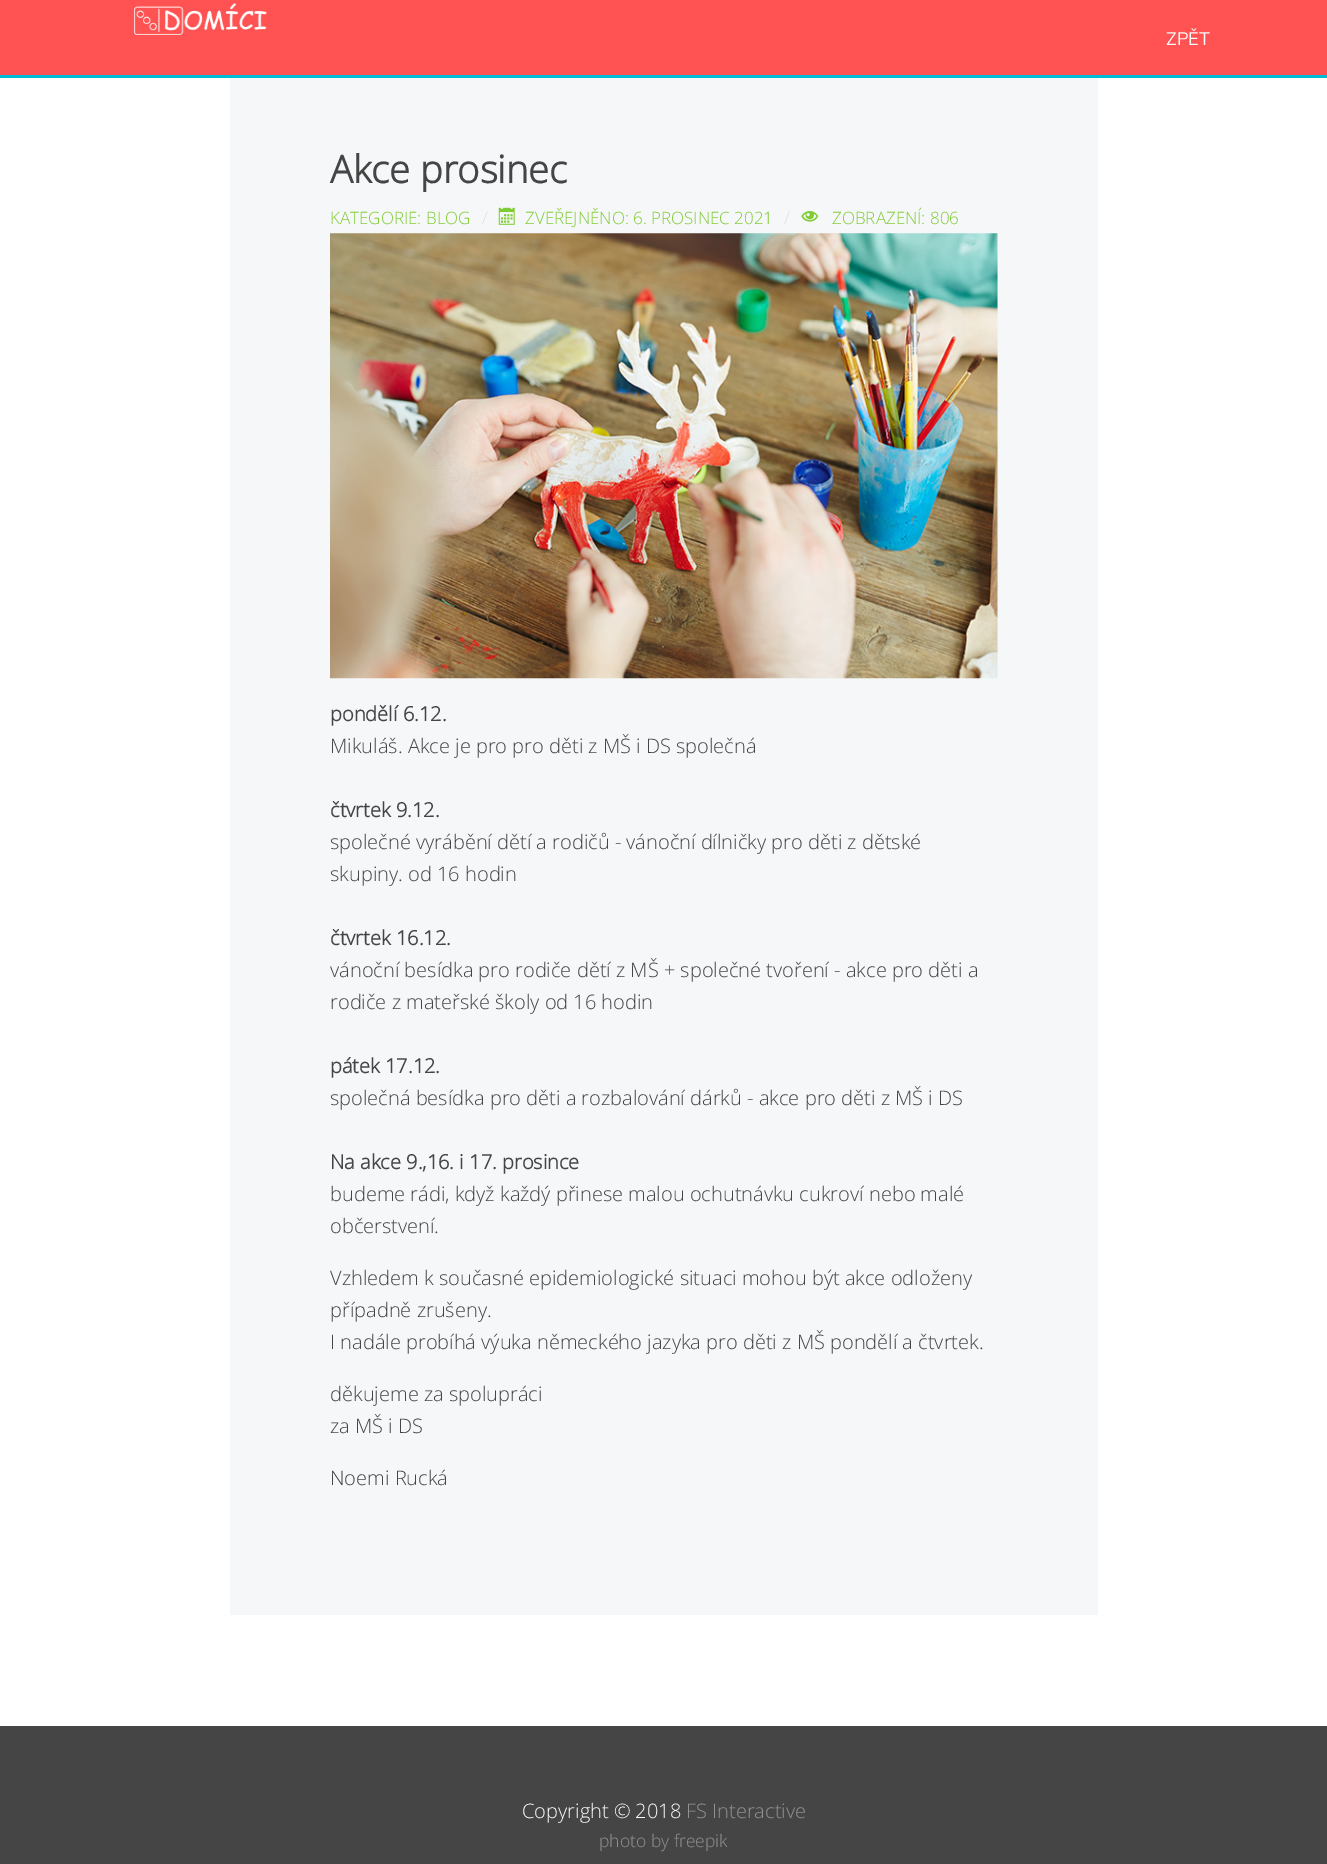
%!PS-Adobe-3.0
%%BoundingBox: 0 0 1327 1864
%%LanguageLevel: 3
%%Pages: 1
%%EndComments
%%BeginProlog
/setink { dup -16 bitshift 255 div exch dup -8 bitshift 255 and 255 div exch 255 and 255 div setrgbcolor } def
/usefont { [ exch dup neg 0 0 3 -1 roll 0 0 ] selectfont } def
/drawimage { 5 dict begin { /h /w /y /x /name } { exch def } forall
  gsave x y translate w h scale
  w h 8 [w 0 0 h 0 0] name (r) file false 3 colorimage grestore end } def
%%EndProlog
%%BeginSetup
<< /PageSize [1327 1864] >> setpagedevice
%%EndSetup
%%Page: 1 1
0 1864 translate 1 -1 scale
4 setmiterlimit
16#FFFFFF setink
0 0 1327 1864 rectfill
16#00BCD4 setink
0 75 1327 3 rectfill
16#FF5252 setink
0 0 1327 75 rectfill
(img1.raw) 134 3 133 32 drawimage
/Muli-Regular 18 usefont
16#FCFCFC setink
1166 45 moveto (ZPĚT) show
16#F5F7F8 setink
230 78 868 1537 rectfill
/OpenSans-Bold 38 usefont
16#454545 setink
330 183 moveto (Akce prosinec) show
/OpenSans-Light 17 usefont
16#80CD33 setink
330 224 moveto (KATEGORIE: BLOG) show
16#E0E0E5 setink
482 224 moveto (/) show
(img2.raw) 498 207 17 18 drawimage
16#80CD33 setink
525 224 moveto (ZVEŘEJNĚNO: 6. PROSINEC 2021) show
16#E0E0E5 setink
784 224 moveto (/) show
(img3.raw) 801 211 18 11 drawimage
16#80CD33 setink
832 224 moveto (ZOBRAZENÍ: 806) show
(img4.raw) 330 233 668 446 drawimage
/OpenSans-Bold 20 usefont
16#454545 setink
330 721 moveto (pondělí 6.12.) show
/OpenSans-Light 20 usefont
330 753 moveto (Mikuláš. Akce je pro pro děti z MŠ i DS společná) show
/OpenSans-Bold 20 usefont
330 817 moveto (čtvrtek 9.12.) show
/OpenSans-Light 20 usefont
330 849 moveto (společné vyrábění dětí a rodičů - vánoční dílničky pro děti z dětské) show
330 881 moveto (skupiny. od 16 hodin) show
/OpenSans-Bold 20 usefont
330 945 moveto (čtvrtek 16.12.) show
/OpenSans-Light 20 usefont
330 977 moveto (vánoční besídka pro rodiče dětí z MŠ + společné tvoření - akce pro děti a) show
330 1009 moveto (rodiče z mateřské školy od 16 hodin) show
/OpenSans-Bold 20 usefont
330 1073 moveto (pátek 17.12.) show
/OpenSans-Light 20 usefont
330 1105 moveto (společná besídka pro děti a rozbalování dárků - akce pro děti z MŠ i DS) show
/OpenSans-Bold 20 usefont
330 1169 moveto (Na akce 9.,16. i 17. prosince) show
/OpenSans-Light 20 usefont
[
    [(budeme rádi, když každý přinese malou ochutnávku cukroví nebo malé) 330 1201]
    [(občerstvení.) 330 1233]
    [(Vzhledem k současné epidemiologické situaci mohou být akce odloženy) 330 1285]
    [(případně zrušeny.) 330 1317]
    [(I nadále probíhá výuka německého jazyka pro děti z MŠ pondělí a čtvrtek.) 330 1349]
    [(děkujeme za spolupráci) 330 1401]
    [(za MŠ i DS) 330 1433]
    [(Noemi Rucká) 330 1485]
] { aload pop moveto show } forall
0 1726 1327 138 rectfill
16#FCFCFC setink
522 1818 moveto (Copyright © 2018) show
16#929292 setink
686 1818 moveto (FS Interactive) show
/OpenSans-Light 17.5 usefont
599 1847 moveto (photo by freepik) show
showpage
%%EOF
